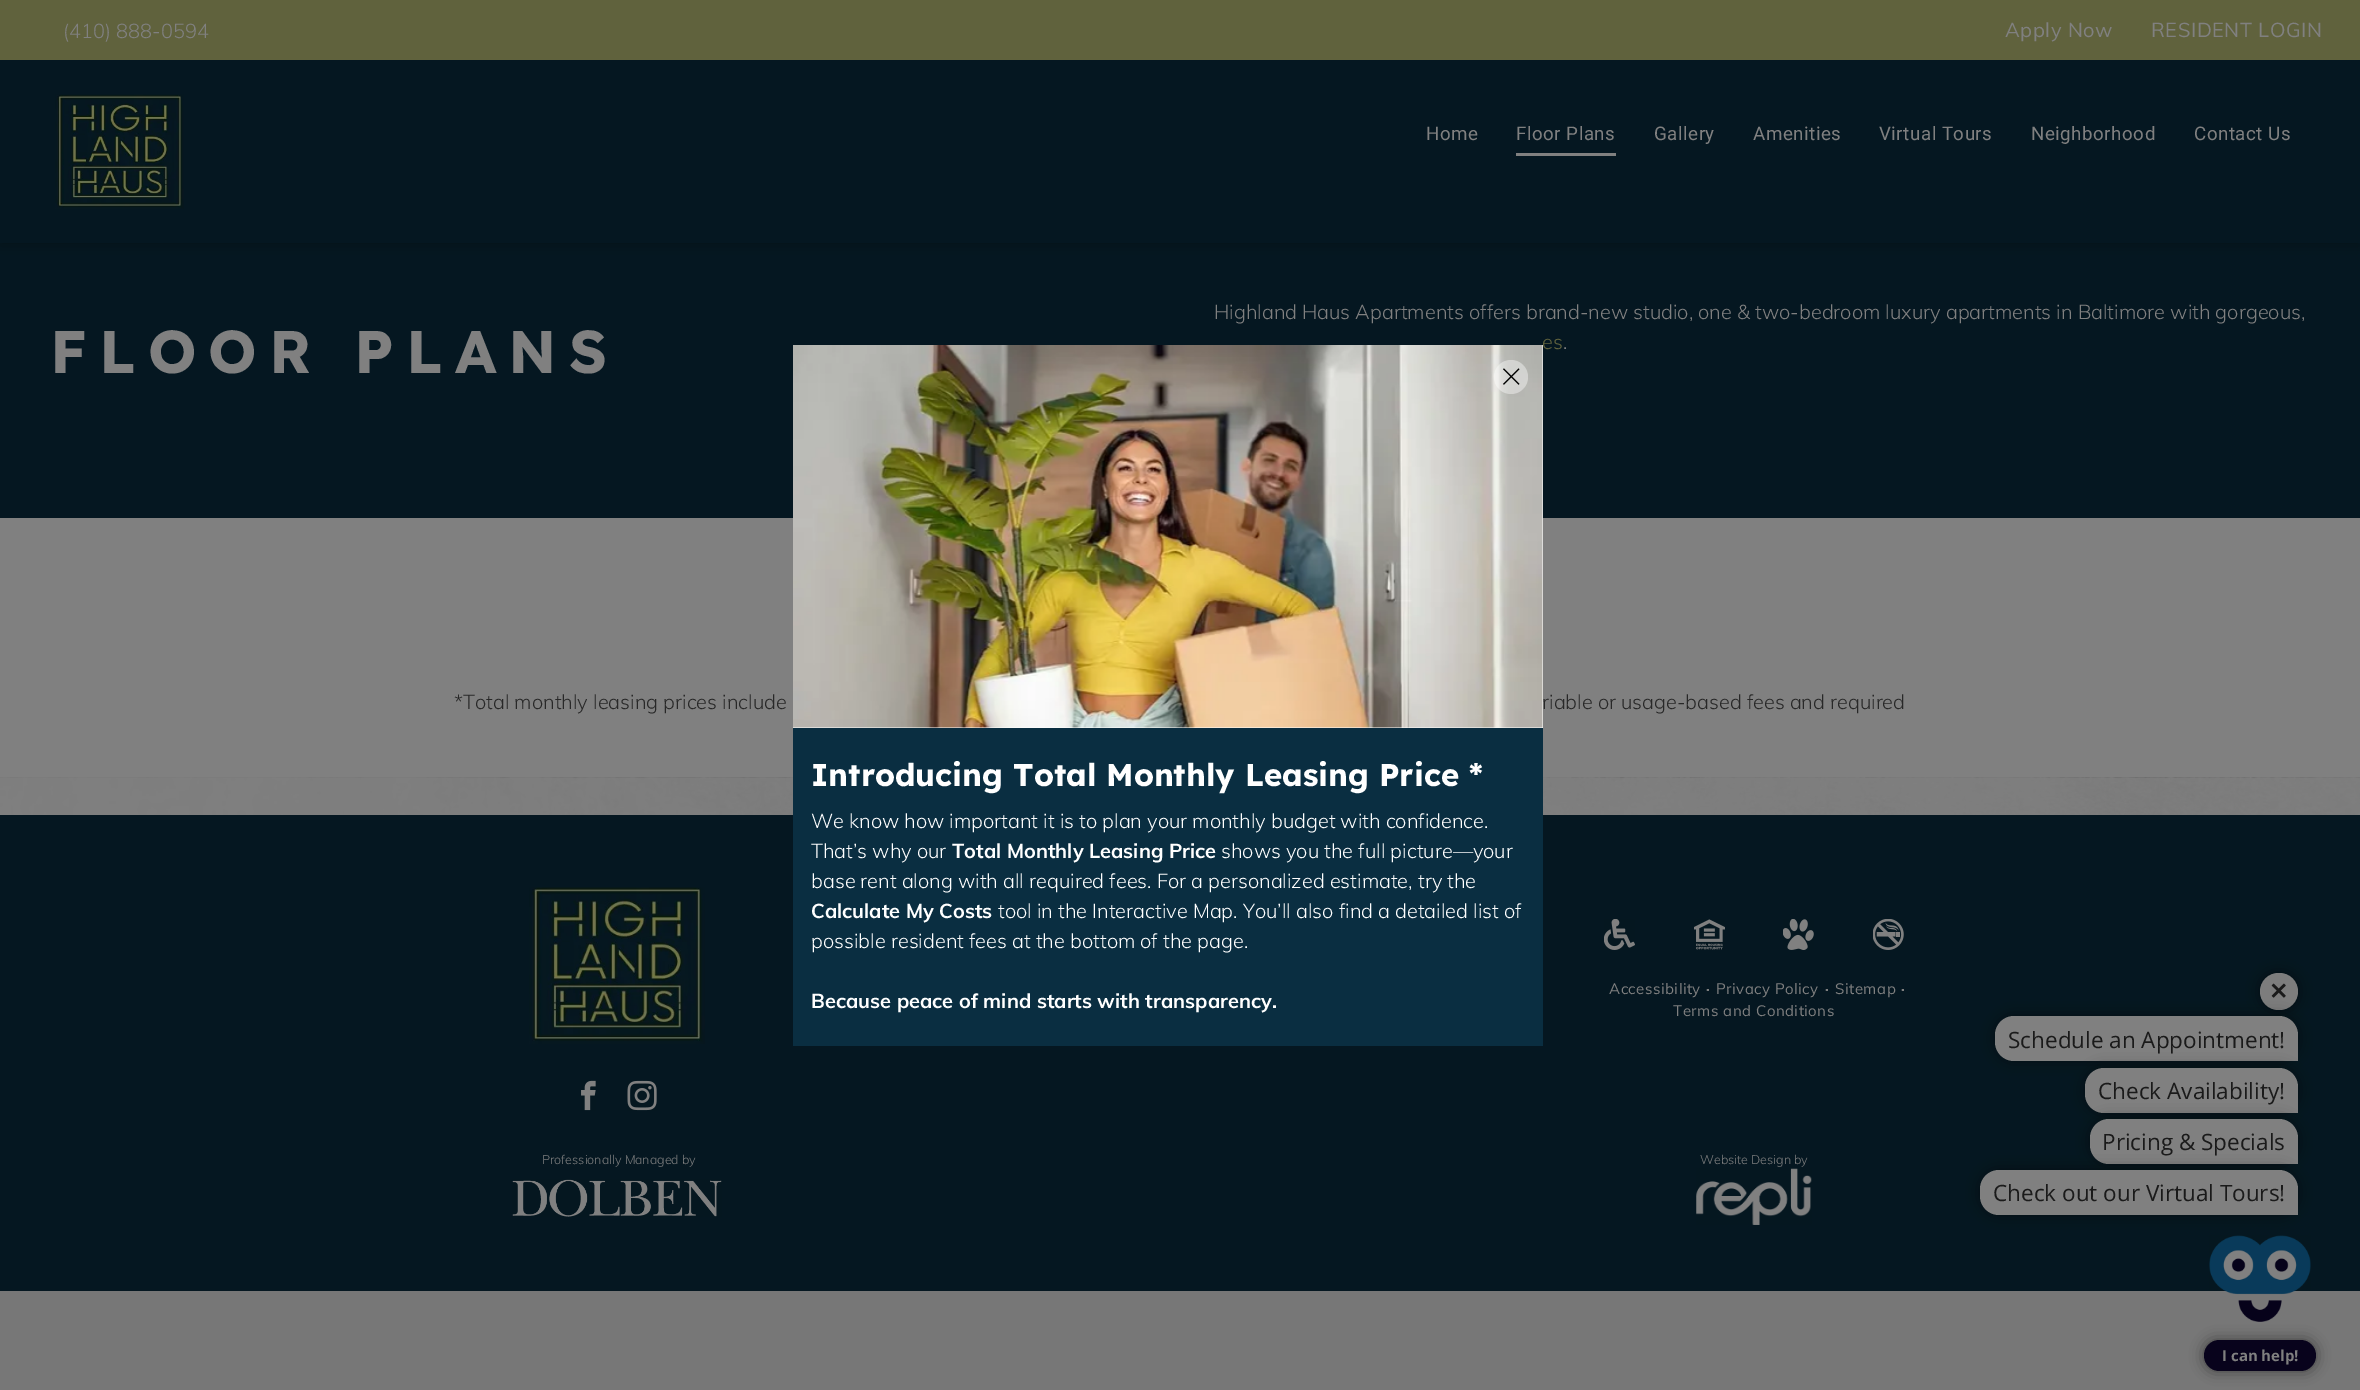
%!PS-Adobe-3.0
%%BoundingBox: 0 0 2360 1390
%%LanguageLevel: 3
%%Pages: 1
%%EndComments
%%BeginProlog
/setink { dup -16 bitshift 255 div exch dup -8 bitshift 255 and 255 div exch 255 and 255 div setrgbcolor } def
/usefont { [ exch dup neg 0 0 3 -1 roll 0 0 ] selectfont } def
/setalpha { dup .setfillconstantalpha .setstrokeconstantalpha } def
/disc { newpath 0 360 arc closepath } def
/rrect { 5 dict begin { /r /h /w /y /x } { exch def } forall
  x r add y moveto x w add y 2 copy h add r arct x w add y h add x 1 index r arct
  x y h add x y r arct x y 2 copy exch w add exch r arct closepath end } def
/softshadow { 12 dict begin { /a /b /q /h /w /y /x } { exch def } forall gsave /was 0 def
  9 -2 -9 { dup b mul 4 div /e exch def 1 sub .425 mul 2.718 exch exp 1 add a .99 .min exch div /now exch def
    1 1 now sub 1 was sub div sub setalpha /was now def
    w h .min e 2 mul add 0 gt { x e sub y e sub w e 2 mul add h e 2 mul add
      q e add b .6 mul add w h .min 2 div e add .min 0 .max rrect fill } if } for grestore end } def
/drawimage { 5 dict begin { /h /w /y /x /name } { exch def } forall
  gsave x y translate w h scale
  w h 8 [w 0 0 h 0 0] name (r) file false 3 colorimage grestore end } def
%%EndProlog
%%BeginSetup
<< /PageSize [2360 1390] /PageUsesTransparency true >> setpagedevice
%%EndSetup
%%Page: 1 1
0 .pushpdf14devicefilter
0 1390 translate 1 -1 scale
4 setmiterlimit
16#777777 setink
0 0 2360 1390 rectfill
16#808080 setink
0 518 2360 260 rectfill
16#051721 setink
0 243 2360 275 rectfill
16#000000 setink
0 4 2360 242 0 7 0.25 softshadow
16#051721 setink
0 60 2360 183 rectfill
16#60623D setink
0 0 2360 60 rectfill
/Muli-Light 20 usefont
16#808080 setink
63 38 moveto (\(410\) 888-0594) show
/Muli-Regular 20 usefont
2005 37 moveto 0.6 0 (Apply Now) ashow
2151 37 moveto 0.6 0 (RESIDENT LOGIN) ashow
(img1.raw) 55 94 129 115 drawimage
/Roboto-Regular 18.75 usefont
1426 140 moveto 0.5 0 (Home) ashow
1516 140 moveto 0.5 0 (Floor Plans) ashow
1516 153 100 3 rectfill
1654 140 moveto 0.5 0 (Gallery) ashow
1753 140 moveto 0.5 0 (Amenities) ashow
1879 140 moveto 0.5 0 (Virtual Tours) ashow
2031 140 moveto 0.5 0 (Neighborhood) ashow
2194 140 moveto 0.5 0 (Contact Us) ashow
/LexendDeca-Bold 60 usefont
50 373 moveto 12 0 (FLOOR PLANS) ashow
/Muli-Light 20 usefont
1214 319 moveto (Highland Haus Apartments offers brand-new studio, one & two-bedroom luxury apartments in Baltimore with gorgeous,) show
16#60623D setink
1542 349 moveto (es) show
16#808080 setink
1563 349 moveto (.) show
16#282828 setink
454 709 moveto (*Total monthly leasing prices include) show
1542 709 moveto (riable or usage-based fees and required) show
(img2.raw) 0 777 2360 38 drawimage
16#FFFFFF setink
793 345 750 383 rectfill
(img4.raw) 793 345 750 383 drawimage
0.4 setalpha
1511 377 17 disc fill
1 setalpha
(img3.raw) 1503 368 17 17 drawimage
16#051721 setink
0 815 2360 476 rectfill
16#0A2E41 setink
793 728 750 318 rectfill
/LexendDeca-Bold 31.25 usefont
16#FFFFFF setink
811 786 moveto (Introducing Total Monthly Leasing Price *) show
/Muli-Light 20 usefont
811 828 moveto (We know how important it is to plan your monthly budget with confidence.) show
811 858 moveto (That’s why our) show
/Muli-Bold 20 usefont
952 858 moveto (Total Monthly Leasing Price) show
/Muli-Light 20 usefont
1221 858 moveto (shows you the full picture—your) show
811 888 moveto (base rent along with all required fees. For a personalized estimate, try the) show
/Muli-Bold 20 usefont
811 918 moveto (Calculate My Costs) show
/Muli-Light 20 usefont
998 918 moveto (tool in the Interactive Map. You’ll also find a detailed list of) show
811 948 moveto (possible resident fees at the bottom of the page.) show
/Muli-Bold 20 usefont
811 1008 moveto (Because peace of mind starts with transparency.) show
(img5.raw) 529 887 176 157 drawimage
(img6.raw) 581 1080 15 31 drawimage
(img7.raw) 627 1080 30 31 drawimage
(img8.raw) 1604 919 31 31 drawimage
(img9.raw) 1694 919 31 31 drawimage
(img10.raw) 1783 919 31 31 drawimage
(img11.raw) 1873 919 31 31 drawimage
/Muli-Regular 15 usefont
16#808080 setink
1609 994 moveto 0.5 0 (Accessibility) ashow
/Muli-Bold 15 usefont
1706 994 moveto (·) show
/Muli-Regular 15 usefont
1716 994 moveto 0.5 0 (Privacy Policy) ashow
/Muli-Bold 15 usefont
1825 994 moveto (·) show
/Muli-Regular 15 usefont
1835 994 moveto 0.5 0 (Sitemap) ashow
/Muli-Bold 15 usefont
1901 994 moveto (·) show
/Muli-Regular 15 usefont
1673 1016 moveto 0.5 0 (Terms and Conditions) ashow
/Muli-Light 12.5 usefont
542 1164 moveto (Professionally Managed by) show
(img12.raw) 512 1179 210 38 drawimage
1700 1164 moveto (Website Design by) show
(img13.raw) 1696 1168 116 57 drawimage
16#000000 setink
2260 973 38 37 18.5 7 0.45 softshadow
16#7D7D7D setink
2260 973 38 37 18.5 rrect fill
(img14.raw) 2271 983 15 15 drawimage
16#000000 setink
1995 1016 303 45 19 7 0.45 softshadow
16#808080 setink
2014 1016 moveto 2279 1016 lineto 2289.5 1016 2298 1024.5 2298 1035 curveto 2298 1061 lineto 2014 1061 lineto 2003.5 1061 1995 1052.5 1995 1042 curveto 1995 1035 lineto 1995 1024.5 2003.5 1016 2014 1016 curveto closepath fill
/OpenSans-Regular 22.5 usefont
16#1A1A1A setink
2008 1048 moveto (Schedule an Appointment!) show
16#000000 setink
2085 1068 213 45 19 7 0.45 softshadow
16#808080 setink
2104 1068 moveto 2279 1068 lineto 2289.5 1068 2298 1076.5 2298 1087 curveto 2298 1113 lineto 2104 1113 lineto 2093.5 1113 2085 1104.5 2085 1094 curveto 2085 1087 lineto 2085 1076.5 2093.5 1068 2104 1068 curveto closepath fill
16#1A1A1A setink
2098 1099 moveto (Check Availability!) show
16#000000 setink
2090 1119 208 45 19 7 0.45 softshadow
16#808080 setink
2109 1119 moveto 2279 1119 lineto 2289.5 1119 2298 1127.5 2298 1138 curveto 2298 1164 lineto 2109 1164 lineto 2098.5 1164 2090 1155.5 2090 1145 curveto 2090 1138 lineto 2090 1127.5 2098.5 1119 2109 1119 curveto closepath fill
16#1A1A1A setink
2102 1150 moveto (Pricing & Specials) show
16#000000 setink
1980 1170 318 45 19 7 0.45 softshadow
16#808080 setink
1999 1170 moveto 2279 1170 lineto 2289.5 1170 2298 1178.5 2298 1189 curveto 2298 1215 lineto 1999 1215 lineto 1988.5 1215 1980 1206.5 1980 1196 curveto 1980 1189 lineto 1980 1178.5 1988.5 1170 1999 1170 curveto closepath fill
16#1A1A1A setink
1993 1201 moveto (Check out our Virtual Tours!) show
16#000000 setink
2204 1340 112 31 15.5 7 0.45 softshadow
(img15.raw) 2209 1235 102 87 drawimage
16#08031C setink
2204 1340 112 31 15.5 rrect fill
/OpenSans-Bold 15 usefont
16#808080 setink
2222 1361 moveto (I can help!) show
.poppdf14devicefilter showpage
%%EOF
